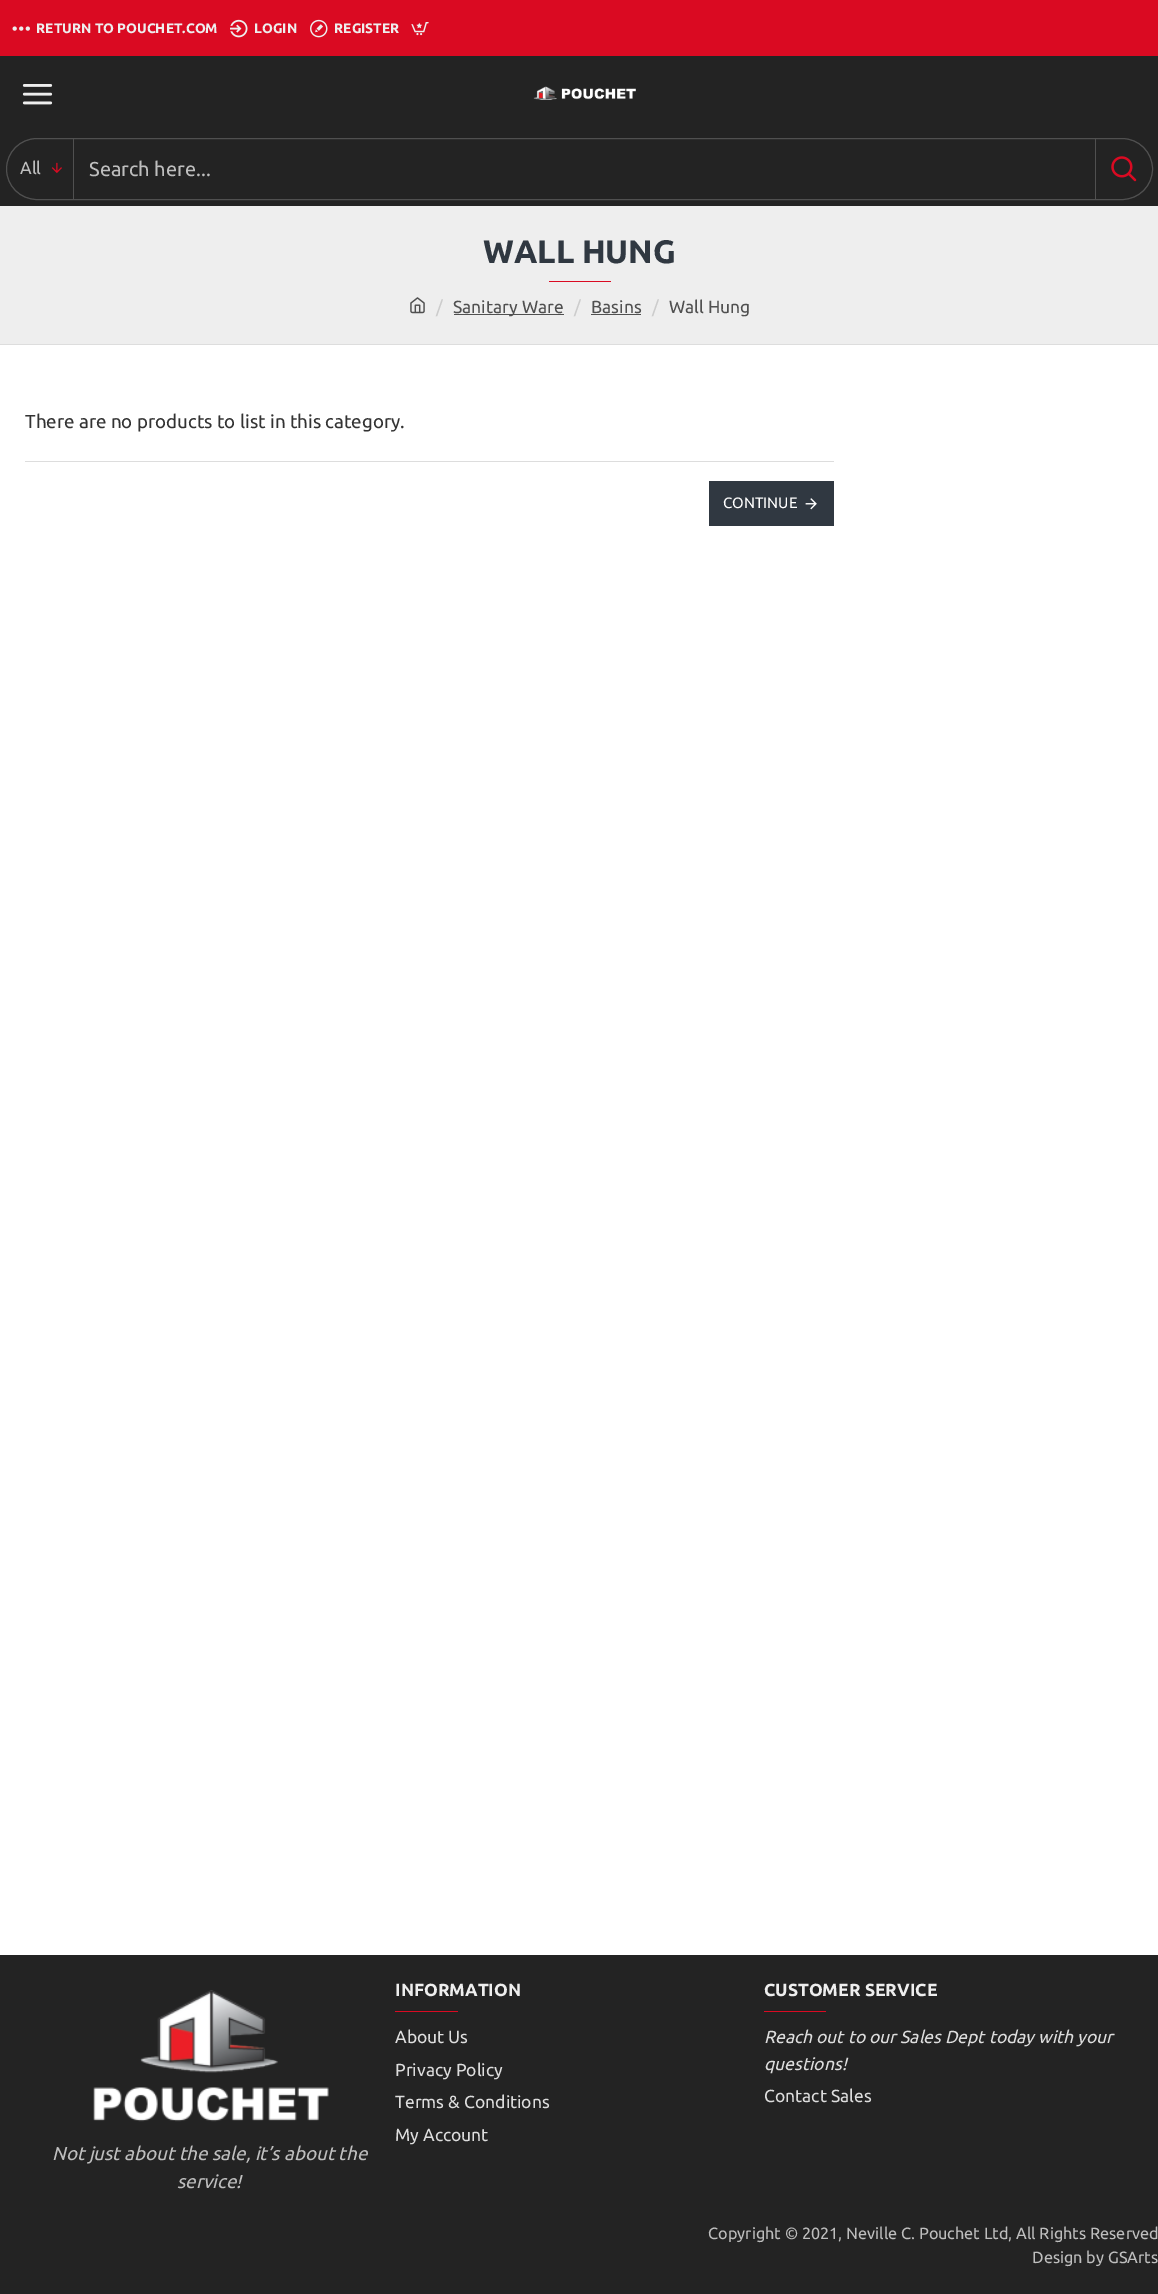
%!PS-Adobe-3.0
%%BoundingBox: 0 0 1158 2294
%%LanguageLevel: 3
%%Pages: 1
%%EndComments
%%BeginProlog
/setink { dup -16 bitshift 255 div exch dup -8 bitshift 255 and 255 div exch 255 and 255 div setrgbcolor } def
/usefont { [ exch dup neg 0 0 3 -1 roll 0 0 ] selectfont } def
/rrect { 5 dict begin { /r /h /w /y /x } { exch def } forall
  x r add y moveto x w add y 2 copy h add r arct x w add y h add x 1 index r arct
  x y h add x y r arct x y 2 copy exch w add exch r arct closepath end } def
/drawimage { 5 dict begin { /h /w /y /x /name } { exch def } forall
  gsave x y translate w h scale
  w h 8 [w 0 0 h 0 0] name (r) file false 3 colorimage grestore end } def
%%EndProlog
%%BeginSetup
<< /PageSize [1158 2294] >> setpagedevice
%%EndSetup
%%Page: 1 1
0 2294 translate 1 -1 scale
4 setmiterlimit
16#FFFFFF setink
0 0 1158 2294 rectfill
16#DA0A22 setink
0 0 1158 56 rectfill
(img1.raw) 12 26 18 5 drawimage
/Ubuntu-Bold 13.75 usefont
16#EEEEEE setink
36 33 moveto (RETURN TO POUCHET.COM) show
(img2.raw) 230 19 18 19 drawimage
254 33 moveto (LOGIN) show
(img3.raw) 310 19 18 19 drawimage
334 33 moveto (REGISTER) show
(img4.raw) 411 22 18 14 drawimage
16#232323 setink
0 56 1158 150 rectfill
(img5.raw) 22 84 31 21 drawimage
(img6.raw) 533 86 103 14 drawimage
16#505050 setink
6.5 138.5 1146 61 30.5 rrect stroke
73 139 1 60 rectfill
/Ubuntu-Regular 17.5 usefont
16#BEBEBE setink
20 174 moveto (All) show
(img7.raw) 51 162 11 12 drawimage
/Ubuntu-Regular 20 usefont
89 176 moveto (Search here...) show
16#505050 setink
1095 139 1 60 rectfill
(img8.raw) 1111 156 26 26 drawimage
16#EEEEEE setink
0 206 1158 138 rectfill
/Ubuntu-Bold 32.5 usefont
16#303841 setink
483 263 moveto (WALL HUNG) show
16#DA0A22 setink
549 281 62 1 rectfill
16#DDDDDD setink
0 344 1158 1 rectfill
(img9.raw) 410 297 15 17 drawimage
/Ubuntu-Regular 17.5 usefont
16#CCCCCC setink
436 313 moveto (/) show
16#505050 setink
454 314 110 1 rectfill
453 313 moveto (Sanitary Ware) show
16#CCCCCC setink
574 313 moveto (/) show
16#505050 setink
591 313 moveto (Basins) show
591 314 50 1 rectfill
16#CCCCCC setink
652 313 moveto (/) show
16#505050 setink
669 313 moveto (Wall Hung) show
/Ubuntu-Regular 18.75 usefont
16#333333 setink
25 428 moveto (There are no products to list in this category.) show
16#DDDDDD setink
25 461 809 1 rectfill
16#303841 setink
709 481 125 45 rectfill
/Ubuntu-Regular 15 usefont
16#FFFFFF setink
723 508 moveto (CONTINUE) show
(img10.raw) 805 498 12 12 drawimage
16#232323 setink
0 1955 1158 339 rectfill
/Ubuntu-Bold 17.5 usefont
16#EEEEEE setink
395 1996 moveto (INFORMATION) show
16#DA0A22 setink
395 2011 63 1 rectfill
/Ubuntu-Regular 17.5 usefont
16#DDDDDD setink
[
    [(About Us) 395 2043]
    [(Privacy Policy) 395 2076]
    [(Terms & Conditions) 395 2108]
    [(My Account) 395 2141]
] { aload pop moveto show } forall
/Ubuntu-Bold 17.5 usefont
16#EEEEEE setink
764 1996 moveto (CUSTOMER SERVICE) show
16#DA0A22 setink
764 2011 62 1 rectfill
/Ubuntu-Italic 17.5 usefont
16#DDDDDD setink
764 2043 moveto (Reach out to our Sales Dept today with your) show
764 2070 moveto (questions!) show
/Ubuntu-Regular 17.5 usefont
764 2102 moveto (Contact Sales) show
(img11.raw) 93 1990 236 132 drawimage
/Ubuntu-Italic 18.75 usefont
16#BEBEBE setink
52 2160 moveto (Not just about the sale, it’s about the) show
177 2188 moveto (service!) show
/Ubuntu-Regular 16.25 usefont
708 2239 moveto (Copyright © 2021, Neville C. Pouchet Ltd, All Rights Reserved) show
1032 2263 moveto (Design by GSArts) show
showpage
%%EOF
